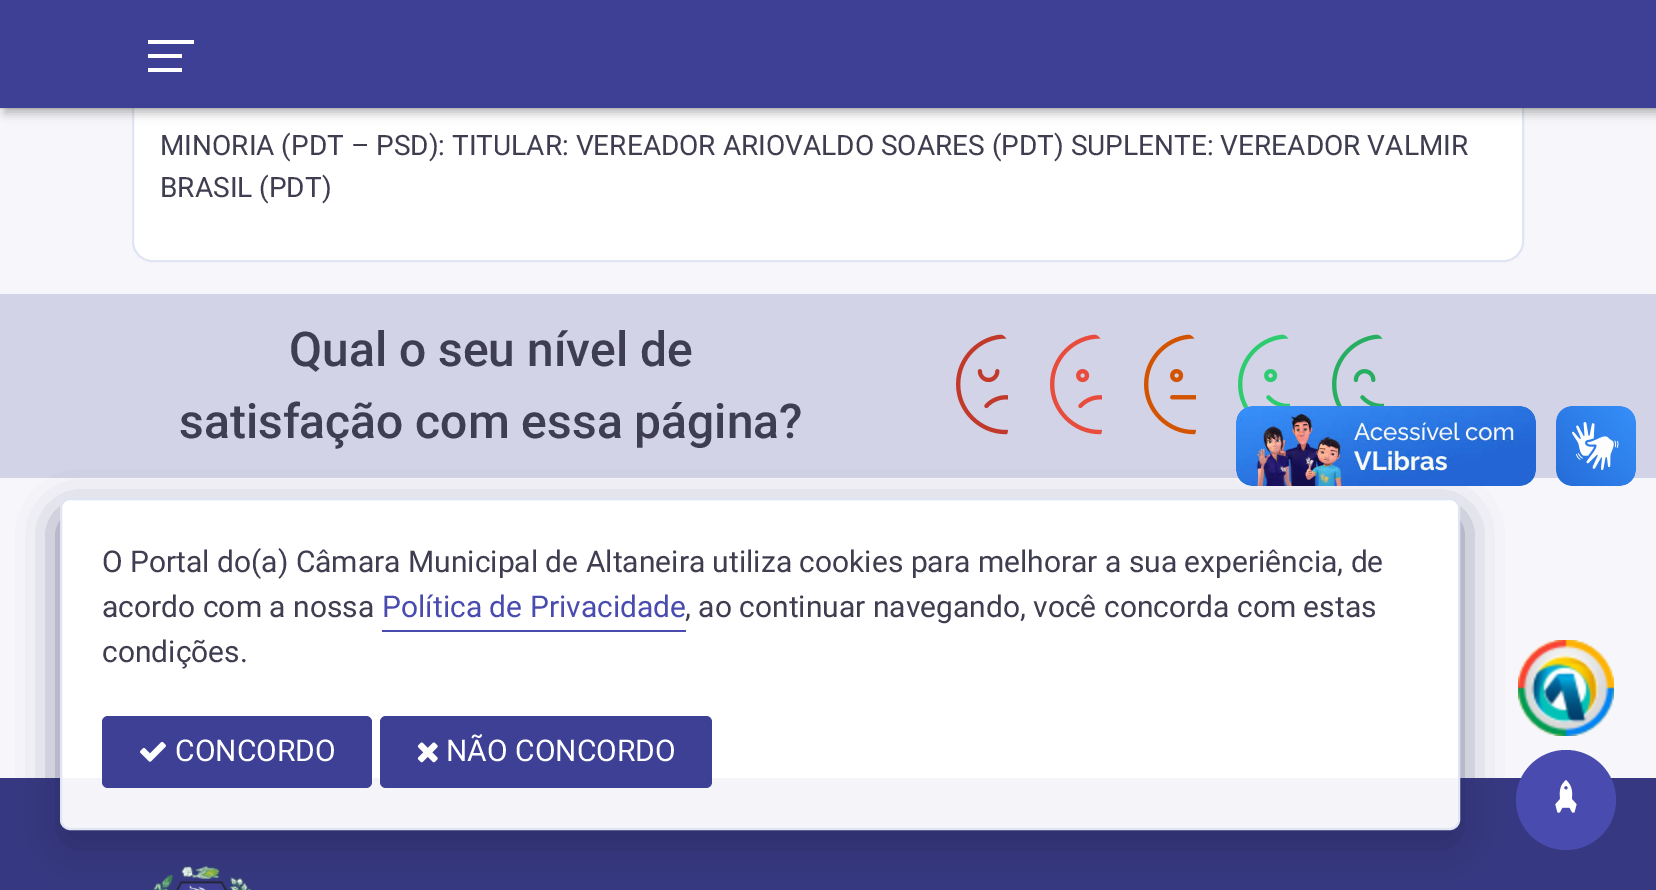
%!PS-Adobe-3.0
%%BoundingBox: 0 0 1656 890
%%LanguageLevel: 3
%%Pages: 1
%%EndComments
%%BeginProlog
/setink { dup -16 bitshift 255 div exch dup -8 bitshift 255 and 255 div exch 255 and 255 div setrgbcolor } def
/usefont { [ exch dup neg 0 0 3 -1 roll 0 0 ] selectfont } def
/setalpha { dup .setfillconstantalpha .setstrokeconstantalpha } def
/disc { newpath 0 360 arc closepath } def
/rrect { 5 dict begin { /r /h /w /y /x } { exch def } forall
  x r add y moveto x w add y 2 copy h add r arct x w add y h add x 1 index r arct
  x y h add x y r arct x y 2 copy exch w add exch r arct closepath end } def
/softshadow { 12 dict begin { /a /b /q /h /w /y /x } { exch def } forall gsave /was 0 def
  9 -2 -9 { dup b mul 4 div /e exch def 1 sub .425 mul 2.718 exch exp 1 add a .99 .min exch div /now exch def
    1 1 now sub 1 was sub div sub setalpha /was now def
    w h .min e 2 mul add 0 gt { x e sub y e sub w e 2 mul add h e 2 mul add
      q e add b .6 mul add w h .min 2 div e add .min 0 .max rrect fill } if } for grestore end } def
/drawimage { 5 dict begin { /h /w /y /x /name } { exch def } forall
  gsave x y translate w h scale
  w h 8 [w 0 0 h 0 0] name (r) file false 3 colorimage grestore end } def
%%EndProlog
%%BeginSetup
<< /PageSize [1656 890] /PageUsesTransparency true >> setpagedevice
%%EndSetup
%%Page: 1 1
0 .pushpdf14devicefilter
0 890 translate 1 -1 scale
4 setmiterlimit
16#F7F7FB setink
0 0 1656 890 rectfill
16#FFFFFF setink
133 -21 1390 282 19 rrect gsave fill grestore
16#E0E5F3 setink
2 setlinewidth
stroke
16#000000 setink
4 6 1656 108 0 4.5 0.24 softshadow
0 0 1656 108 0 1 0.3 softshadow
[
    [0 0 1656 108 16#3E4095]
    [148 54 34 4 16#FFFFFF]
    [148 40 46 4 16#FFFFFF]
    [148 68 34 4 16#FFFFFF]
] { aload pop setink rectfill } forall
/Roboto-Regular 28 usefont
16#3F3E50 setink
160 155 moveto (MINORIA \(PDT – PSD\): TITULAR: VEREADOR ARIOVALDO SOARES \(PDT\) SUPLENTE: VEREADOR VALMIR) show
160 197 moveto (BRASIL \(PDT\)) show
16#D3D3E7 setink
0 294 1656 184 rectfill
/Roboto-Medium 48 usefont
16#3F3E50 setink
289 366 moveto (Qual o seu nível de) show
179 438 moveto (satisfação com essa página?) show
(img1.raw) 956 334 52 101 drawimage
(img2.raw) 1050 334 52 101 drawimage
(img3.raw) 1144 334 52 101 drawimage
(img4.raw) 1238 334 52 75 drawimage
(img5.raw) 1332 334 52 72 drawimage
16#363881 setink
0 778 1656 112 rectfill
(img12.raw) 152 865 99 25 drawimage
gsave
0 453 moveto 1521 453 lineto 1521 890 lineto 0 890 lineto closepath 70 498 moveto 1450 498 lineto 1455.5 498 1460 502.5 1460 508 curveto 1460 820 lineto 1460 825.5 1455.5 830 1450 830 curveto 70 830 lineto 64.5 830 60 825.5 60 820 curveto 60 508 lineto 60 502.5 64.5 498 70 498 curveto closepath eoclip newpath
16#282559 setink
60 514 1400 332 10 20 0.6 softshadow
grestore
(img6.raw) 1236 406 300 80 drawimage
(img7.raw) 1556 406 80 80 drawimage
0.95 setalpha
16#FFFFFF setink
61 499 1398 330 9 rrect fill
1 setalpha
16#E0E5F3 setink
61 499 1398 330 9 rrect stroke
/Roboto-Regular 30 usefont
16#3F3E50 setink
102 572 moveto (O Portal do\(a\) Câmara Municipal de Altaneira utiliza cookies para melhorar a sua experiência, de) show
102 617 moveto (acordo com a nossa) show
16#494BAF setink
382 617 moveto (Política de Privacidade) show
382 630 304 2 rectfill
16#3F3E50 setink
685 617 moveto (, ao continuar navegando, você concorda com estas) show
102 662 moveto (condições.) show
16#3E4095 setink
102 716 270 72 6 rrect fill
(img8.raw) 140 741 26 21 drawimage
16#FFFFFF setink
175 761 moveto (CONCORDO) show
16#3E4095 setink
380 716 332 72 6 rrect fill
(img9.raw) 417 742 21 21 drawimage
16#FFFFFF setink
446 761 moveto (NÃO CONCORDO) show
(img10.raw) 1518 640 96 96 drawimage
16#494BAF setink
1566 800 50 disc fill
(img11.raw) 1555 780 22 33 drawimage
.poppdf14devicefilter showpage
%%EOF
